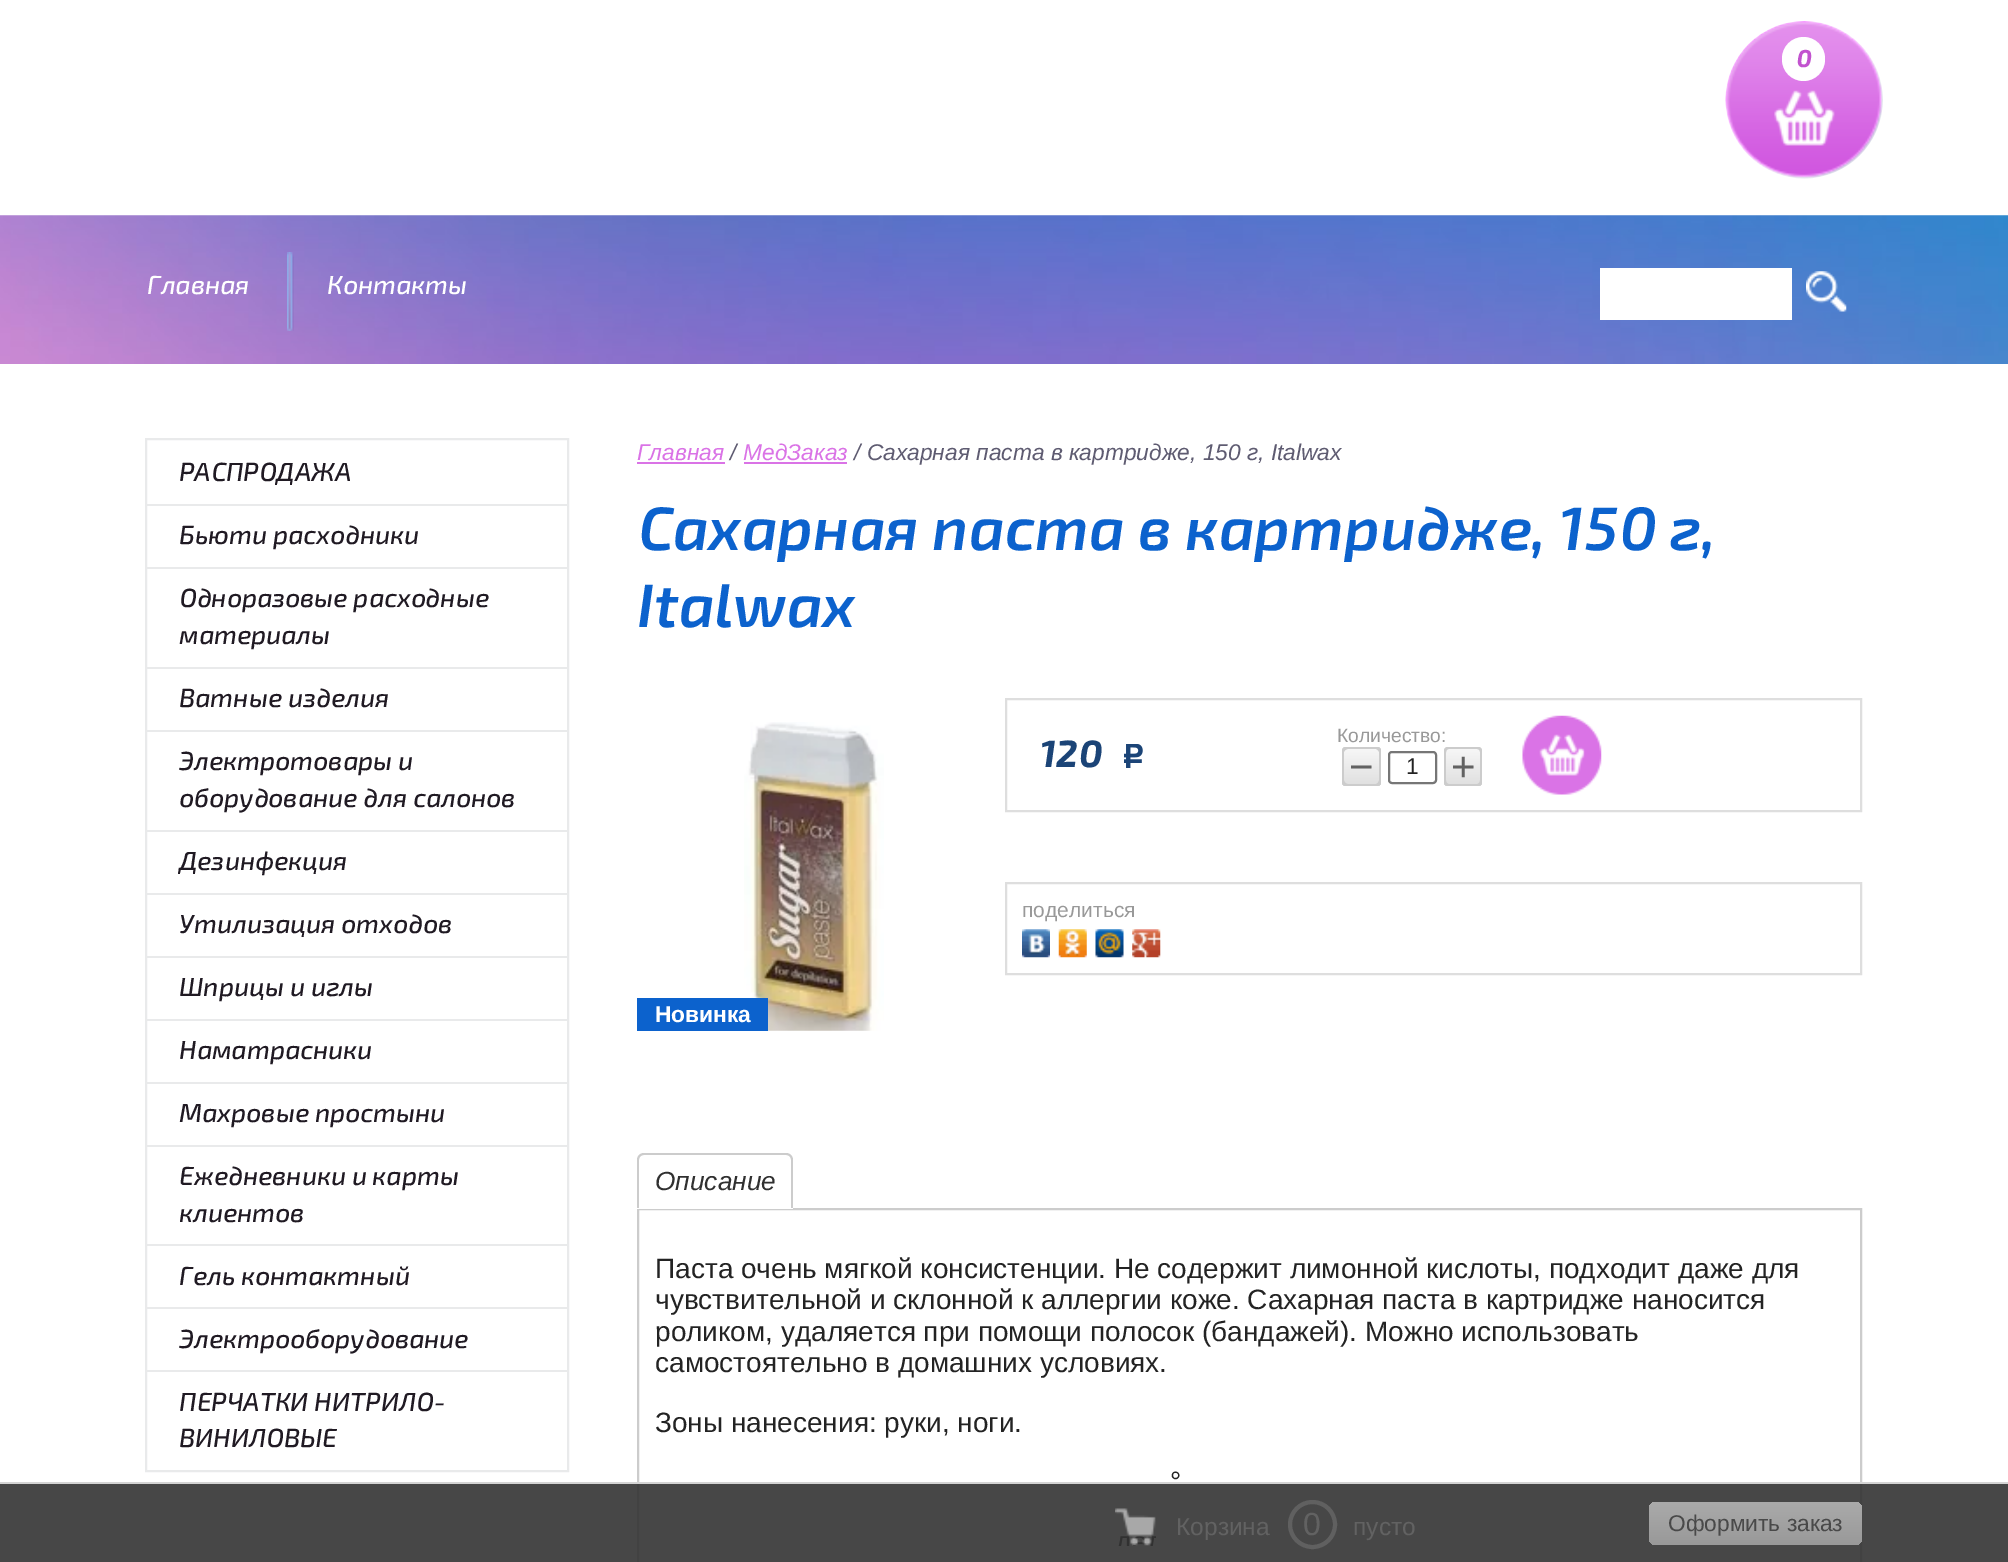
%!PS-Adobe-3.0
%%BoundingBox: 0 0 2008 1562
%%LanguageLevel: 3
%%Pages: 1
%%EndComments
%%BeginProlog
/setink { dup -16 bitshift 255 div exch dup -8 bitshift 255 and 255 div exch 255 and 255 div setrgbcolor } def
/usefont { [ exch dup neg 0 0 3 -1 roll 0 0 ] selectfont } def
/setalpha { dup .setfillconstantalpha .setstrokeconstantalpha } def
/disc { newpath 0 360 arc closepath } def
/rrect { 5 dict begin { /r /h /w /y /x } { exch def } forall
  x r add y moveto x w add y 2 copy h add r arct x w add y h add x 1 index r arct
  x y h add x y r arct x y 2 copy exch w add exch r arct closepath end } def
/drawimage { 5 dict begin { /h /w /y /x /name } { exch def } forall
  gsave x y translate w h scale
  w h 8 [w 0 0 h 0 0] name (r) file false 3 colorimage grestore end } def
%%EndProlog
%%BeginSetup
<< /PageSize [2008 1562] /PageUsesTransparency true >> setpagedevice
%%EndSetup
%%Page: 1 1
0 .pushpdf14devicefilter
0 1562 translate 1 -1 scale
4 setmiterlimit
16#FFFFFF setink
0 0 2008 1562 rectfill
(img1.raw) 1725 21 158 158 drawimage
1782 37 43 44 21.5 rrect fill
/Exo2-BoldItalic 24.5 usefont
16#C253CF setink
1796 67 moveto (0) show
(img2.raw) 0 215 2008 149 drawimage
/Exo2-MediumItalic 26.25 usefont
16#FFFFFF setink
147 294 moveto (Главная) show
(img3.raw) 287 252 7 79 drawimage
327 294 moveto (Контакты) show
1600 268 192 52 rectfill
(img4.raw) 1806 271 41 41 drawimage
16#E9EAEB setink
2 setlinewidth
146 439 422 1032 rectstroke
16#201A23 setink
179 481 moveto (РАСПРОДАЖА) show
16#E9EAEB setink
147 504 420 2 rectfill
16#201A23 setink
179 544 moveto (Бьюти расходники) show
16#E9EAEB setink
147 567 420 2 rectfill
16#201A23 setink
179 607 moveto (Одноразовые расходные) show
179 644 moveto (материалы) show
16#E9EAEB setink
147 667 420 2 rectfill
16#201A23 setink
179 707 moveto (Ватные изделия) show
16#E9EAEB setink
147 730 420 2 rectfill
16#201A23 setink
179 770 moveto (Электротовары и) show
179 807 moveto (оборудование для салонов) show
16#E9EAEB setink
147 830 420 2 rectfill
16#201A23 setink
179 870 moveto (Дезинфекция) show
16#E9EAEB setink
147 893 420 2 rectfill
16#201A23 setink
179 933 moveto (Утилизация отходов) show
16#E9EAEB setink
147 956 420 2 rectfill
16#201A23 setink
179 996 moveto (Шприцы и иглы) show
16#E9EAEB setink
147 1019 420 2 rectfill
16#201A23 setink
179 1059 moveto (Наматрасники) show
16#E9EAEB setink
147 1082 420 2 rectfill
16#201A23 setink
179 1122 moveto (Махровые простыни) show
16#E9EAEB setink
147 1145 420 2 rectfill
16#201A23 setink
179 1185 moveto (Ежедневники и карты) show
179 1222 moveto (клиентов) show
16#E9EAEB setink
147 1244 420 2 rectfill
16#201A23 setink
179 1285 moveto (Гель контактный) show
16#E9EAEB setink
147 1307 420 2 rectfill
16#201A23 setink
179 1348 moveto (Электрооборудование) show
16#E9EAEB setink
147 1370 420 2 rectfill
16#201A23 setink
179 1411 moveto (ПЕРЧАТКИ НИТРИЛО-) show
179 1447 moveto (ВИНИЛОВЫЕ) show
/LiberationSans-Italic 22.75 usefont
16#DA73E6 setink
637 460 moveto (Главная) show
637 462 88 2 rectfill
16#5E5B71 setink
730 460 moveto (/) show
16#DA73E6 setink
743 460 moveto (МедЗаказ) show
744 462 103 2 rectfill
16#5E5B71 setink
854 460 moveto (/ Сахарная паста в картридже, 150 г, Italwax) show
/Exo2-SemiBoldItalic 61.25 usefont
16#0C62CD setink
637 550 moveto (Сахарная паста в картридже, 150 г,) show
637 627 moveto (Italwax) show
16#DEDEDE setink
1006 699 855 112 rectstroke
/Exo2-BoldItalic 38 usefont
16#1B4477 setink
1040 767 moveto (120) show
(img5.raw) 1124 744 19 24 drawimage
/LiberationSans-Regular 19.25 usefont
16#999999 setink
1337 742 moveto (Количество:) show
gsave 1342 747 39 39 4 rrect clip newpath
<< /ShadingType 2 /ColorSpace /DeviceRGB /Coords [1362 747 1362 786] /Extend [true true] /Function << /FunctionType 2 /Domain [0 1] /C0 [0.973 0.973 0.973] /C1 [0.875 0.875 0.875] /N 1 >> >> shfill grestore
16#CCCCCC setink
1344.5 747 moveto 1343 748 1342 749 1342 751 curveto 1342 782 lineto 1342 784 1344 786 1346 786 curveto 1377 786 lineto 1379 786 1380 785 1381 783.5 curveto 1380.5 783.5 1379.5 784 1379 784 curveto 1348 784 lineto 1346 784 1344 782 1344 780 curveto 1344 749 lineto 1344 748.5 1344.5 747.5 1344.5 747 curveto closepath fill
1344 749 moveto 1376 749 lineto 1377 749 1379 751 1379 752 curveto 1379 784 lineto 1378.5 785.5 lineto 1380 785 1381 783.5 1381 782 curveto 1381 751 lineto 1381 749 1379 747 1377 747 curveto 1346 747 lineto 1344.5 747 1343 748 1342.5 749.5 curveto closepath fill
1342.5 783.5 moveto 1343 785 1344.5 786 1346 786 curveto 1377 786 lineto 1379 786 1381 784 1381 782 curveto 1381 751 lineto 1381 749.5 1380 748 1378.5 747 curveto 1378.5 747.5 1379 748.5 1379 749 curveto 1379 780 lineto 1379 782 1377 784 1376 784 curveto 1344 784 lineto closepath fill
1348 749 moveto 1379 749 lineto 1379.5 749 1380.5 749.5 1381 749.5 curveto 1380 748 1378.5 747 1377 747 curveto 1346 747 lineto 1344 747 1342 749 1342 751 curveto 1342 782 lineto 1342 783.5 1343 785 1344.5 785.5 curveto 1344 784 lineto 1344 752 lineto 1344 751 1346 749 1348 749 curveto closepath fill
/LiberationSans-Regular 42 usefont
16#626262 setink
1349 781 moveto (−) show
16#767676 setink
1389 752 47 31 3 rrect stroke
/LiberationSans-Regular 22.75 usefont
16#232323 setink
1406 774 moveto (1) show
gsave 1444 747 38 39 4 rrect clip newpath
<< /ShadingType 2 /ColorSpace /DeviceRGB /Coords [1463 747 1463 786] /Extend [true true] /Function << /FunctionType 2 /Domain [0 1] /C0 [0.973 0.973 0.973] /C1 [0.875 0.875 0.875] /N 1 >> >> shfill grestore
16#CCCCCC setink
1446.5 747.5 moveto 1445 748 1444 749.5 1444 751 curveto 1444 782 lineto 1444 784 1446 786 1448 786 curveto 1478 786 lineto 1479.5 786 1481 785 1481.5 783.5 curveto 1480 784 lineto 1449 784 lineto 1447 784 1446 782 1446 780 curveto 1446 749 lineto closepath fill
1446 749 moveto 1477 749 lineto 1479 749 1480 751 1480 752 curveto 1480 784 lineto 1480 785.5 lineto 1481 785 1482 783.5 1482 782 curveto 1482 751 lineto 1482 749 1480 747 1478 747 curveto 1448 747 lineto 1446.5 747 1445 748 1444.5 749.5 curveto closepath fill
1444.5 783.5 moveto 1445 785 1446.5 786 1448 786 curveto 1478 786 lineto 1480 786 1482 784 1482 782 curveto 1482 751 lineto 1482 749.5 1481 748 1479.5 747.5 curveto 1480 749 lineto 1480 780 lineto 1480 782 1479 784 1477 784 curveto 1446 784 lineto closepath fill
1449 749 moveto 1480 749 lineto 1481.5 749.5 lineto 1481 748 1479.5 747 1478 747 curveto 1448 747 lineto 1446 747 1444 749 1444 751 curveto 1444 782 lineto 1444 783.5 1445 785 1446 785.5 curveto 1446 757.5 lineto 1446 755.5 1445 749 1449 749 curveto closepath fill
/LiberationSans-Regular 42 usefont
16#626262 setink
1451 781 moveto (+) show
(img6.raw) 1522 715 80 80 drawimage
16#DEDEDE setink
1006 883 855 91 rectstroke
/LiberationSans-Regular 21 usefont
16#999999 setink
1022 917 moveto (поделиться) show
(img7.raw) 1022 929 28 29 drawimage
(img8.raw) 1058 929 29 29 drawimage
(img9.raw) 1095 929 29 29 drawimage
(img10.raw) 1132 929 29 29 drawimage
(img11.raw) 744 722 140 309 drawimage
16#0C62CD setink
637 998 131 33 rectfill
/LiberationSans-Bold 22.75 usefont
16#FFFFFF setink
655 1022 moveto (Новинка) show
16#CCCCCC setink
638 1209 1223 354 rectstroke
16#FFFFFF setink
644 1153 moveto 786 1153 lineto 790 1153 793 1156 793 1160 curveto 793 1209 lineto 637 1209 lineto 637 1160 lineto 637 1156 640 1153 644 1153 curveto closepath fill
16#CCCCCC setink
644 1153 moveto 786 1153 lineto 790 1153 793 1156 793 1160 curveto 793 1208 lineto 637 1208 lineto 637 1160 lineto 637 1156 640 1153 644 1153 curveto closepath 644 1155 moveto 786 1155 lineto 789 1155 791 1157 791 1160 curveto 791 1208 lineto 639 1208 lineto 639 1160 lineto 639 1157 641 1155 644 1155 curveto closepath eofill
/LiberationSans-Italic 26.25 usefont
16#303030 setink
655 1190 moveto (Описание) show
/LiberationSans-Regular 28 usefont
16#232323 setink
[
    [(Паста очень мягкой консистенции. Не содержит лимонной кислоты, подходит даже для) 655 1278]
    [(чувствительной и склонной к аллергии коже. Сахарная паста в картридже наносится) 655 1309]
    [(роликом, удаляется при помощи полосок \(бандажей\). Можно использовать) 655 1341]
    [(самостоятельно в домашних условиях.) 655 1372]
    [(Зоны нанесения: руки, ноги.) 655 1432]
    [(°) 1170 1491]
] { aload pop moveto show } forall
0.9 setalpha
16#333333 setink
0 1484 2008 78 rectfill
1 setalpha
16#D4D4D4 setink
0 1482 2008 2 rectfill
(img12.raw) 1115 1508 41 38 drawimage
/LiberationSans-Regular 24.5 usefont
16#626262 setink
1176 1535 moveto (Корзина) show
16#606060 setink
4 setlinewidth
1312.5 1524.5 22.5 disc stroke
/LiberationSans-Regular 32 usefont
16#626262 setink
1303 1535 moveto (0) show
/LiberationSans-Regular 24.5 usefont
1353 1535 moveto (пусто) show
gsave 1649 1502 213 43 7 rrect clip newpath
<< /ShadingType 2 /ColorSpace /DeviceRGB /Coords [1755 1502 1755 1545] /Extend [true true] /Function << /FunctionType 2 /Domain [0 1] /C0 [0.667 0.667 0.667] /C1 [0.6 0.6 0.6] /N 1 >> >> shfill grestore
/LiberationSans-Regular 22.75 usefont
16#494949 setink
1668 1531 moveto (Оформить заказ) show
.poppdf14devicefilter showpage
%%EOF
